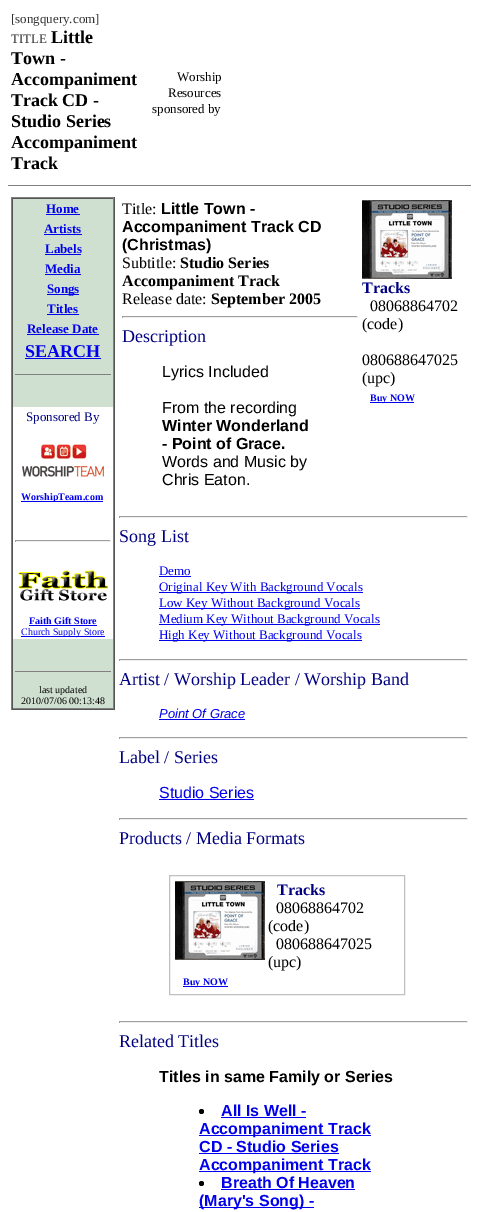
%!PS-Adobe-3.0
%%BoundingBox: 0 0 479 1212
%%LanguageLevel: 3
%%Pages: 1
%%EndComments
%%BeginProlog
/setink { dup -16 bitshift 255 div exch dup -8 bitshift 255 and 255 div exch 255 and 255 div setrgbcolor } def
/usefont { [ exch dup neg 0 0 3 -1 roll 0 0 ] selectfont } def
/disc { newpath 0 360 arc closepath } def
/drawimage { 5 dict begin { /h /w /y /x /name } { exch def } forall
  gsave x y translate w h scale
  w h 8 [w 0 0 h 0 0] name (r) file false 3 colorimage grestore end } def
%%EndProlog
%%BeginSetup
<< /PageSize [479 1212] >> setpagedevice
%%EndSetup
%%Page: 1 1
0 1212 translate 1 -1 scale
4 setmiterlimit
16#FFFFFF setink
0 0 479 1212 rectfill
/LiberationSerif-Regular 13 usefont
16#333333 setink
11 23 moveto ([songquery.com]) show
11 43 moveto (TITLE) show
/LiberationSerif-Bold 18 usefont
16#000000 setink
[
    [(Little) 51 43]
    [(Town -) 11 64]
    [(Accompaniment) 11 85]
    [(Track CD -) 11 106]
    [(Studio Series) 11 127]
    [(Accompaniment) 11 148]
    [(Track) 11 169]
] { aload pop moveto show } forall
/LiberationSerif-Regular 13 usefont
[
    [(Worship) 177 81]
    [(Resources) 168 97]
    [(sponsored by) 152 113]
] { aload pop moveto show } forall
[
    [8 185 463 1 16#808080]
    [13 199 100 509 16#D0E0D0]
    [11 197 104 1 16#808080]
    [114 197 1 513 16#555555]
    [11 709 104 1 16#555555]
    [11 197 1 513 16#808080]
    [12 198 102 1 16#555555]
    [113 198 1 511 16#808080]
    [12 708 102 1 16#808080]
    [12 198 1 511 16#555555]
] { aload pop setink rectfill } forall
/LiberationSerif-Bold 13 usefont
16#0000EE setink
46 213 moveto (Home) show
46 214 34 1 rectfill
44 233 moveto (Artists) show
44 234 38 1 rectfill
45 253 moveto (Labels) show
45 254 36 1 rectfill
45 273 moveto (Media) show
45 274 36 1 rectfill
47 294 32 1 rectfill
47 293 moveto (Songs) show
47 313 moveto (Titles) show
47 314 32 1 rectfill
27 333 moveto (Release Date) show
27 334 72 1 rectfill
/LiberationSerif-Bold 18 usefont
25 357 moveto (SEARCH) show
[
    [25 358 76 1 16#0000EE]
    [15 374 96 1 16#808080]
    [13 407 100 232 16#FFFFFF]
] { aload pop setink rectfill } forall
/LiberationSerif-Regular 13 usefont
16#000080 setink
26 421 moveto (Sponsored By) show
(img1.raw) 21 443 84 35 drawimage
16#0000EE setink
21 501 82 1 rectfill
/LiberationSerif-Bold 10 usefont
21 500 moveto (WorshipTeam.com) show
[
    [15 540 96 1 16#9F9F9F]
    [110 540 1 2 16#EEEEEE]
    [15 541 96 1 16#EEEEEE]
    [15 540 1 2 16#9F9F9F]
] { aload pop setink rectfill } forall
(img2.raw) 18 570 90 31 drawimage
16#0000EE setink
29 624 moveto (Faith Gift Store) show
29 625 68 1 rectfill
21 636 84 1 rectfill
/LiberationSerif-Regular 10 usefont
21 635 moveto (Church Supply Store) show
16#808080 setink
15 671 96 1 rectfill
16#000000 setink
39 693 moveto (last updated) show
21 704 moveto (2010/07/06 00:13:48) show
/LiberationSerif-Regular 16 usefont
122 214 moveto (Title:) show
/LiberationSans-Bold 16 usefont
[
    [(Little Town -) 161 214]
    [(Accompaniment Track CD) 122 232]
    [(\(Christmas\)) 122 250]
] { aload pop moveto show } forall
/LiberationSerif-Regular 16 usefont
122 268 moveto (Subtitle:) show
/LiberationSerif-Bold 16 usefont
180 268 moveto (Studio Series) show
122 286 moveto (Accompaniment Track) show
/LiberationSerif-Regular 16 usefont
122 304 moveto (Release date:) show
/LiberationSerif-Bold 16 usefont
211 304 moveto (September 2005) show
[
    [122 316 236 1 16#9F9F9F]
    [357 316 1 2 16#EEEEEE]
    [122 317 236 1 16#EEEEEE]
    [122 316 1 2 16#9F9F9F]
] { aload pop setink rectfill } forall
/LiberationSerif-Regular 18 usefont
16#000080 setink
122 342 moveto (Description) show
/LiberationSans-Regular 16 usefont
16#000000 setink
162 377 moveto (Lyrics Included) show
162 413 moveto (From the recording) show
/LiberationSans-Bold 16 usefont
162 431 moveto (Winter Wonderland) show
162 449 moveto (- Point of Grace.) show
/LiberationSans-Regular 16 usefont
162 467 moveto (Words and Music by) show
162 485 moveto (Chris Eaton.) show
(img3.raw) 362 200 90 79 drawimage
/LiberationSerif-Bold 16 usefont
16#000080 setink
362 293 moveto (Tracks) show
/LiberationSerif-Regular 16 usefont
16#000000 setink
[
    [(08068864702) 370 311]
    [(\(code\)) 362 329]
    [(080688647025) 362 365]
    [(\(upc\)) 362 383]
] { aload pop moveto show } forall
16#0000EE setink
370 402 44 1 rectfill
/LiberationSerif-Bold 10 usefont
370 401 moveto (Buy NOW) show
[
    [119 516 349 1 16#9F9F9F]
    [467 516 1 2 16#EEEEEE]
    [119 517 349 1 16#EEEEEE]
    [119 516 1 2 16#9F9F9F]
] { aload pop setink rectfill } forall
/LiberationSerif-Regular 18 usefont
16#000080 setink
119 542 moveto (Song List) show
/LiberationSerif-Regular 13 usefont
16#0000EE setink
159 575 moveto (Demo) show
159 576 32 1 rectfill
159 592 204 1 rectfill
159 591 moveto (Original Key With Background Vocals) show
159 608 201 1 rectfill
159 607 moveto (Low Key Without Background Vocals) show
159 624 221 1 rectfill
159 623 moveto (Medium Key Without Background Vocals) show
159 640 203 1 rectfill
159 639 moveto (High Key Without Background Vocals) show
[
    [119 659 349 1 16#9F9F9F]
    [467 659 1 2 16#EEEEEE]
    [119 660 349 1 16#EEEEEE]
    [119 659 1 2 16#9F9F9F]
] { aload pop setink rectfill } forall
/LiberationSerif-Regular 18 usefont
16#000080 setink
119 685 moveto (Artist / Worship Leader / Worship Band) show
/LiberationSans-Italic 13 usefont
16#0000EE setink
159 718 moveto (Point Of Grace) show
[
    [159 719 86 1 16#0000EE]
    [119 737 349 1 16#9F9F9F]
    [467 737 1 2 16#EEEEEE]
    [119 738 349 1 16#EEEEEE]
    [119 737 1 2 16#9F9F9F]
] { aload pop setink rectfill } forall
/LiberationSerif-Regular 18 usefont
16#000080 setink
119 763 moveto (Label / Series) show
/LiberationSans-Regular 16 usefont
16#0000EE setink
159 798 moveto (Studio Series) show
[
    [159 799 95 1 16#0000EE]
    [119 818 349 1 16#9F9F9F]
    [467 818 1 2 16#EEEEEE]
    [119 819 349 1 16#EEEEEE]
    [119 818 1 2 16#9F9F9F]
] { aload pop setink rectfill } forall
/LiberationSerif-Regular 18 usefont
16#000080 setink
119 844 moveto (Products / Media Formats) show
16#C0C0C0 setink
169.5 875.5 235 119 rectstroke
(img3.raw) 175 881 90 79 drawimage
/LiberationSerif-Bold 16 usefont
16#000080 setink
277 895 moveto (Tracks) show
/LiberationSerif-Regular 16 usefont
16#000000 setink
[
    [(08068864702) 276 913]
    [(\(code\)) 268 931]
    [(080688647025) 276 949]
    [(\(upc\)) 268 967]
] { aload pop moveto show } forall
16#0000EE setink
183 986 45 1 rectfill
/LiberationSerif-Bold 10 usefont
183 985 moveto (Buy NOW) show
[
    [119 1021 349 1 16#9F9F9F]
    [467 1021 1 2 16#EEEEEE]
    [119 1022 349 1 16#EEEEEE]
    [119 1021 1 2 16#9F9F9F]
] { aload pop setink rectfill } forall
/LiberationSerif-Regular 18 usefont
16#000080 setink
119 1047 moveto (Related Titles) show
/LiberationSans-Bold 16 usefont
16#000000 setink
159 1082 moveto (Titles in same Family or Series) show
201.5 1111.5 2.5 disc fill
16#0000EE setink
221 1116 moveto (All Is Well -) show
221 1117 85 1 rectfill
199 1135 172 1 rectfill
199 1134 moveto (Accompaniment Track) show
199 1152 moveto (CD - Studio Series) show
199 1153 140 1 rectfill
199 1171 172 1 rectfill
199 1170 moveto (Accompaniment Track) show
16#000000 setink
201.5 1183.5 2.5 disc fill
16#0000EE setink
221 1188 moveto (Breath Of Heaven) show
221 1189 134 1 rectfill
199 1207 115 1 rectfill
199 1206 moveto (\(Mary's Song\) -) show
showpage
%%EOF
